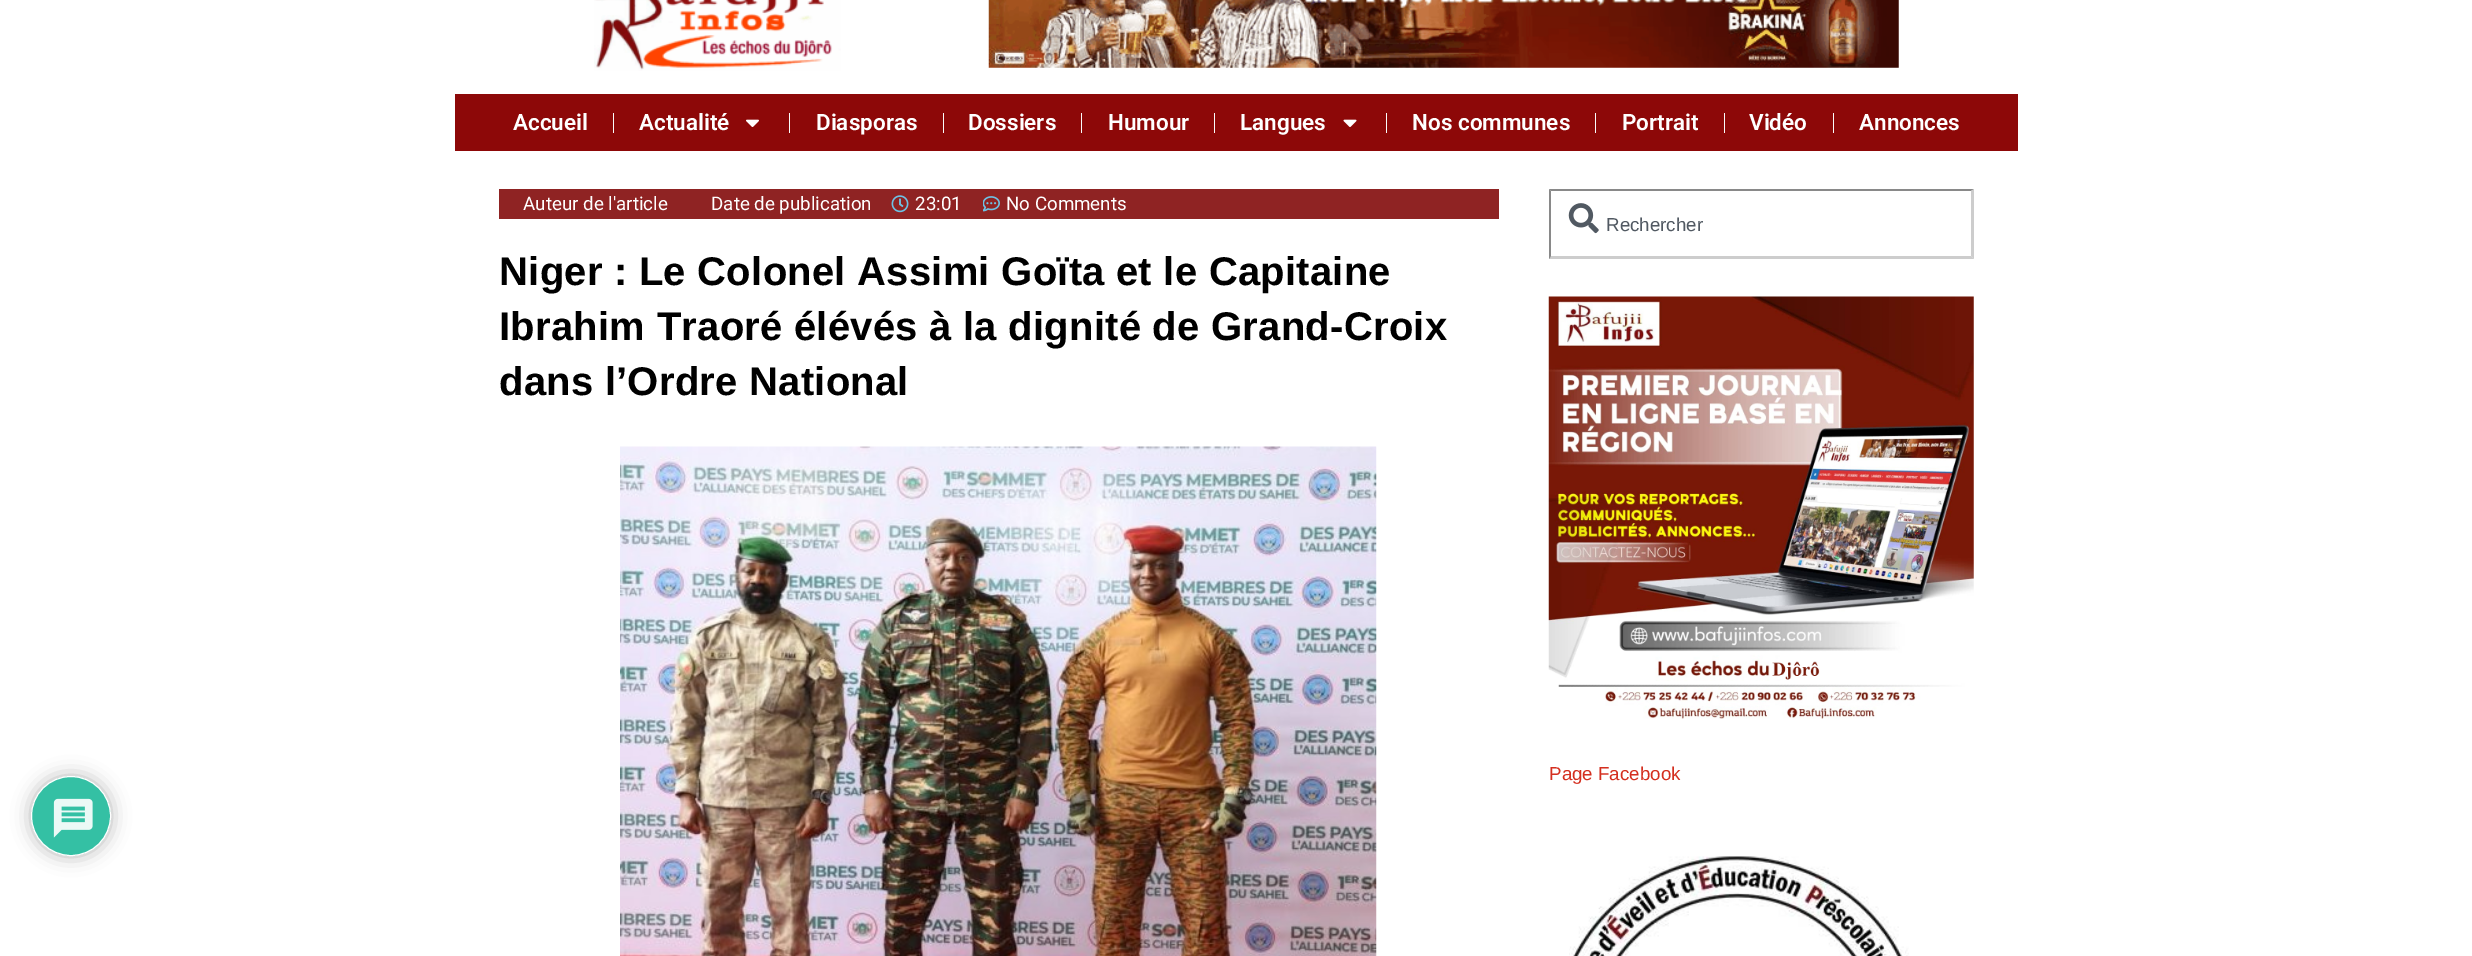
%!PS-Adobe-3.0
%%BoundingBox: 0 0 2472 956
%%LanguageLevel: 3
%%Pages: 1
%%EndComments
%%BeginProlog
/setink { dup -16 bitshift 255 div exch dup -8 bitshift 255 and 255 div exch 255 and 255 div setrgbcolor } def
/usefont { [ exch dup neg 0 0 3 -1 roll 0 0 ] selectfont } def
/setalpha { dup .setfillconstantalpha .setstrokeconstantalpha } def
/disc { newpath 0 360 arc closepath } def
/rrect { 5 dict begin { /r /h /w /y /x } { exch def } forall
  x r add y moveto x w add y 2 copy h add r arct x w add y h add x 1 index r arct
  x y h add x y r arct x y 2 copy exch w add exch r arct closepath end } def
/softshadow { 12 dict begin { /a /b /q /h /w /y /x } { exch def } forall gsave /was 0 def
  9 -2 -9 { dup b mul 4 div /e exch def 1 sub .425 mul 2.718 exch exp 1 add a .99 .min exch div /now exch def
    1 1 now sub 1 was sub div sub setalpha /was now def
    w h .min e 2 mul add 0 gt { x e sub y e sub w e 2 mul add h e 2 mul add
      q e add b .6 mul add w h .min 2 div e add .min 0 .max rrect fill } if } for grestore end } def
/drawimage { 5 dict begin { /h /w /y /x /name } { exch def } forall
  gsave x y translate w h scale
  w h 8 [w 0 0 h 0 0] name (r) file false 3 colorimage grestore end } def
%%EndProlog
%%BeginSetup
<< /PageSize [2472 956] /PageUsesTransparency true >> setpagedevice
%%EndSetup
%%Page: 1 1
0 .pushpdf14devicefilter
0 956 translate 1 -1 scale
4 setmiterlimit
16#FFFFFF setink
0 0 2472 956 rectfill
(img1.raw) 594 0 247 71 drawimage
(img2.raw) 988 0 911 68 drawimage
16#8D0808 setink
455 94 1563 57 rectfill
/Roboto-SemiBold 22.5 usefont
16#FFFFFF setink
513 130 moveto (Accueil) show
16#FAFAFA setink
613 113 1 20 rectfill
16#FFFFFF setink
639 130 moveto (Actualité) show
(img3.raw) 746 119 13 8 drawimage
16#FAFAFA setink
789 113 1 20 rectfill
16#FFFFFF setink
816 130 moveto (Diasporas) show
16#FAFAFA setink
943 113 1 20 rectfill
16#FFFFFF setink
968 130 moveto (Dossiers) show
16#FAFAFA setink
1081 113 1 20 rectfill
16#FFFFFF setink
1108 130 moveto (Humour) show
16#FAFAFA setink
1214 113 1 20 rectfill
16#FFFFFF setink
1240 130 moveto (Langues) show
(img4.raw) 1343 119 14 8 drawimage
16#FAFAFA setink
1386 113 1 20 rectfill
16#FFFFFF setink
1412 130 moveto (Nos communes) show
16#FAFAFA setink
1595 113 1 20 rectfill
16#FFFFFF setink
1622 130 moveto (Portrait) show
16#FAFAFA setink
1724 113 1 20 rectfill
16#FFFFFF setink
1749 130 moveto (Vidéo) show
16#FAFAFA setink
1833 113 1 20 rectfill
16#FFFFFF setink
1859 130 moveto (Annonces) show
16#8F2323 setink
499 189 1000 30 rectfill
/Roboto-Regular 18.75 usefont
16#FFFFFF setink
523 210 moveto (Auteur de l'article) show
711 210 moveto (Date de publication) show
(img5.raw) 891 195 18 18 drawimage
915 210 moveto (23:01) show
(img6.raw) 983 196 17 16 drawimage
1006 210 moveto (No Comments) show
/LiberationSans-Bold 40 usefont
16#000000 setink
499 285 moveto 0.25 0 (Niger : Le Colonel Assimi Goïta et le Capitaine) ashow
499 340 moveto 0.25 0 (Ibrahim Traoré élévés à la dignité de Grand-Croix) ashow
499 395 moveto 0.25 0 (dans l’Ordre National) ashow
(img7.raw) 620 446 757 510 drawimage
(img8.raw) 1568 203 31 31 drawimage
16#898989 setink
1549 189 moveto 1974 189 lineto 1971 191 lineto 1551 191 lineto closepath fill
16#CDCDCD setink
1974 189 moveto 1974 259 lineto 1971 256 lineto 1971 191 lineto closepath fill
1974 259 moveto 1549 259 lineto 1551 256 lineto 1971 256 lineto closepath fill
16#898989 setink
1549 259 moveto 1549 189 lineto 1551 191 lineto 1551 256 lineto closepath fill
/Arimo-Regular 18.75 usefont
16#515962 setink
1606 231 moveto (Rechercher) show
(img9.raw) 1548 296 426 423 drawimage
16#D42F1F setink
1549 780 moveto (Page Facebook) show
(img10.raw) 1569 856 340 100 drawimage
16#B3B3B3 setink
31 776 80 80 40 9.5 1 softshadow
16#34C0A4 setink
71 816 39.5 disc gsave fill grestore
16#FFFFFF setink
stroke
(img11.raw) 53 798 40 40 drawimage
.poppdf14devicefilter showpage
%%EOF
